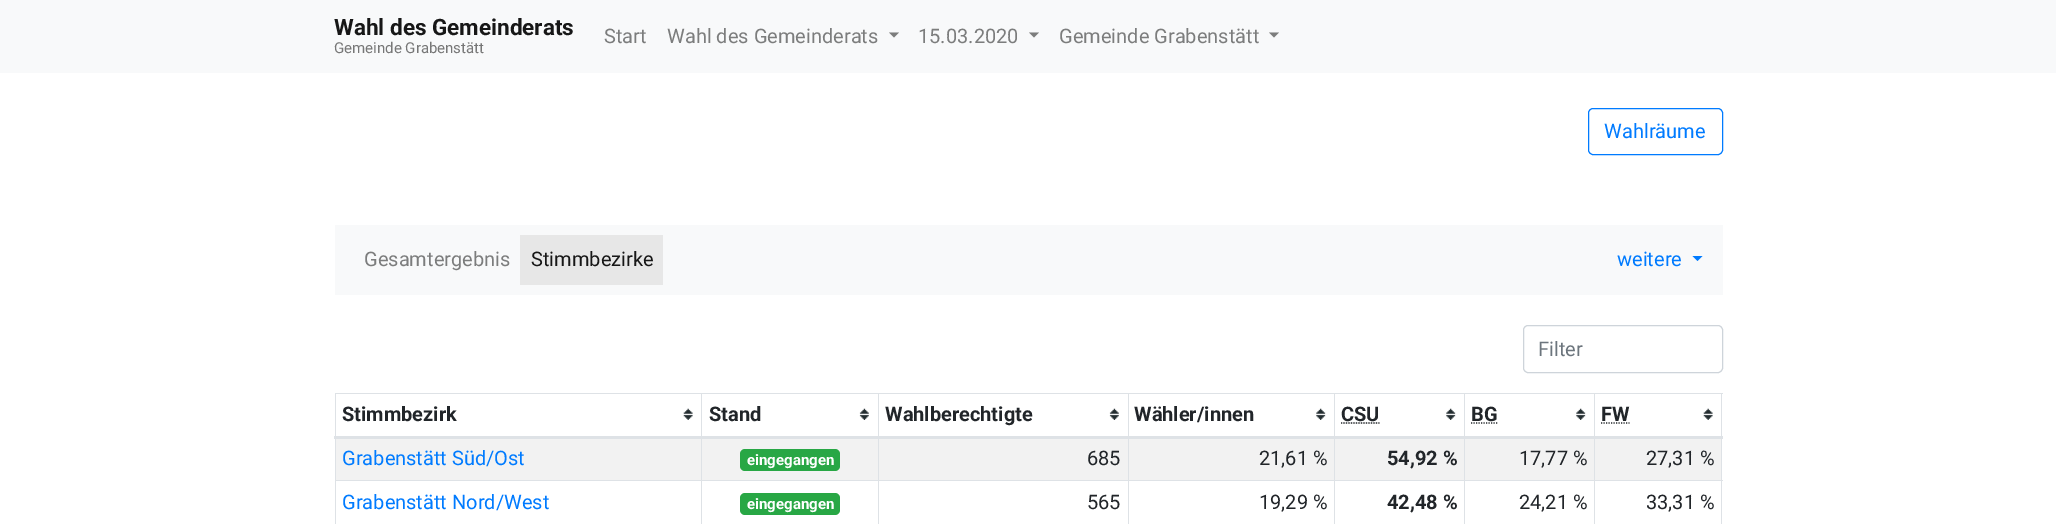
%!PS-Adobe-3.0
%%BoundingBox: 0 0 2056 524
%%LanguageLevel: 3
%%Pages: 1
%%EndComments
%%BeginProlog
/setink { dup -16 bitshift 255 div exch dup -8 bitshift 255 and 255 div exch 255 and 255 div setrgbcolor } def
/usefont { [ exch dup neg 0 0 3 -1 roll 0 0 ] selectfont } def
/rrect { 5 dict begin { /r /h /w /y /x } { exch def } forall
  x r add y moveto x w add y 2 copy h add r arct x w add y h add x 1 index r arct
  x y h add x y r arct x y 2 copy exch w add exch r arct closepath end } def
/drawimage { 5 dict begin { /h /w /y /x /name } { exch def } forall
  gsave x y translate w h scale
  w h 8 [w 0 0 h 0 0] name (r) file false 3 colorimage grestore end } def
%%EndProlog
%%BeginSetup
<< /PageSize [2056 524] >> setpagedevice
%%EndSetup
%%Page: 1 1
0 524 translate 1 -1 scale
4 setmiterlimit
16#FFFFFF setink
0 0 2056 524 rectfill
16#F8F9FA setink
0 0 2056 73 rectfill
/Roboto-Bold 22.5 usefont
16#171717 setink
334 35 moveto (Wahl des Gemeinderats) show
/Roboto-Regular 15 usefont
16#777777 setink
334 53 moveto (Gemeinde Grabenstätt) show
/Roboto-Regular 20 usefont
16#7C7D7D setink
604 43 moveto (Start) show
667 43 moveto (Wahl des Gemeinderats) show
889 32.5 moveto 899 32.5 lineto 894 37.5 lineto closepath fill
918 43 moveto (15.03.2020) show
1029 32.5 moveto 1039 32.5 lineto 1034 37.5 lineto closepath fill
1059 43 moveto (Gemeinde Grabenstätt) show
1269 32.5 moveto 1279 32.5 lineto 1274 37.5 lineto closepath fill
16#007BFF setink
1588.5 108.5 134 46 4.5 rrect stroke
1604 138 moveto (Wahlräume) show
16#F8F9FA setink
335 225 1388 70 rectfill
16#7C7D7D setink
364 266 moveto (Gesamtergebnis) show
16#E7E7E7 setink
520 235 143 50 rectfill
16#171717 setink
531 266 moveto (Stimmbezirke) show
16#007BFF setink
1617 266 moveto (weitere) show
1692.5 256 moveto 1702.5 256 lineto 1697.5 261 lineto closepath fill
16#CED4DA setink
1523.5 325.5 199 47 4.5 rrect stroke
16#6C757D setink
1538 356 moveto (Filter) show
[
    [335 393 1388 1 16#DEE2E6]
    [1721 393 1 131 16#DEE2E6]
    [335 393 1 131 16#DEE2E6]
] { aload pop setink rectfill } forall
(img1.raw) 683 408 10 12 drawimage
/Roboto-Bold 20 usefont
16#212529 setink
342 421 moveto (Stimmbezirk) show
(img2.raw) 859 408 10 12 drawimage
709 421 moveto (Stand) show
(img2.raw) 1109 408 10 12 drawimage
885 421 moveto (Wahlberechtigte) show
(img3.raw) 1316 408 10 12 drawimage
1134 421 moveto (Wähler/innen) show
(img3.raw) 1446 408 10 12 drawimage
1341 421 moveto (CSU) show
1.2 setlinewidth
[1.25 1.25] 0 setdash
1341 423 moveto 1379.5 423 lineto stroke
(img3.raw) 1576 408 10 12 drawimage
1471 421 moveto (BG) show
1471 423 moveto 1497.5 423 lineto stroke
(img1.raw) 1703 408 10 12 drawimage
[
    [336 439 1385 41 16#F2F2F2]
    [1594 480 129 1 16#DEE2E6]
    [1594 480 1 44 16#DEE2E6]
    [1464 480 131 1 16#DEE2E6]
    [1464 480 1 44 16#DEE2E6]
    [1334 480 131 1 16#DEE2E6]
    [1334 480 1 44 16#DEE2E6]
    [1128 480 207 1 16#DEE2E6]
    [1128 480 1 44 16#DEE2E6]
    [878 480 251 1 16#DEE2E6]
    [878 480 1 44 16#DEE2E6]
    [701 480 178 1 16#DEE2E6]
    [701 480 1 44 16#DEE2E6]
    [335 480 368 1 16#DEE2E6]
    [701 393 1 88 16#DEE2E6]
    [878 393 1 88 16#DEE2E6]
    [1128 393 1 88 16#DEE2E6]
    [1334 393 1 88 16#DEE2E6]
    [1464 393 1 88 16#DEE2E6]
    [1594 393 1 88 16#DEE2E6]
    [334 436 1389 3 16#DEE2E6]
] { aload pop setink rectfill } forall
16#212529 setink
1601 421 moveto (FW) show
1601 423 moveto 1629.5 423 lineto stroke
/Roboto-Regular 20 usefont
16#007BFF setink
342 465 moveto (Grabenstätt Süd/Ost) show
16#28A745 setink
740 449 100 22 5 rrect fill
/Roboto-Bold 15 usefont
16#FFFFFF setink
747 465 moveto (eingegangen) show
/Roboto-Regular 20 usefont
16#212529 setink
1087 465 moveto (685) show
1259 465 moveto (21,61 %) show
/Roboto-Bold 20 usefont
1387 465 moveto (54,92 %) show
/Roboto-Regular 20 usefont
1519 465 moveto (17,77 %) show
1646 465 moveto (27,31 %) show
16#007BFF setink
342 509 moveto (Grabenstätt Nord/West) show
16#28A745 setink
740 493 100 22 5 rrect fill
/Roboto-Bold 15 usefont
16#FFFFFF setink
747 509 moveto (eingegangen) show
/Roboto-Regular 20 usefont
16#212529 setink
1087 509 moveto (565) show
1259 509 moveto (19,29 %) show
/Roboto-Bold 20 usefont
1387 509 moveto (42,48 %) show
/Roboto-Regular 20 usefont
1519 509 moveto (24,21 %) show
1646 509 moveto (33,31 %) show
showpage
%%EOF
